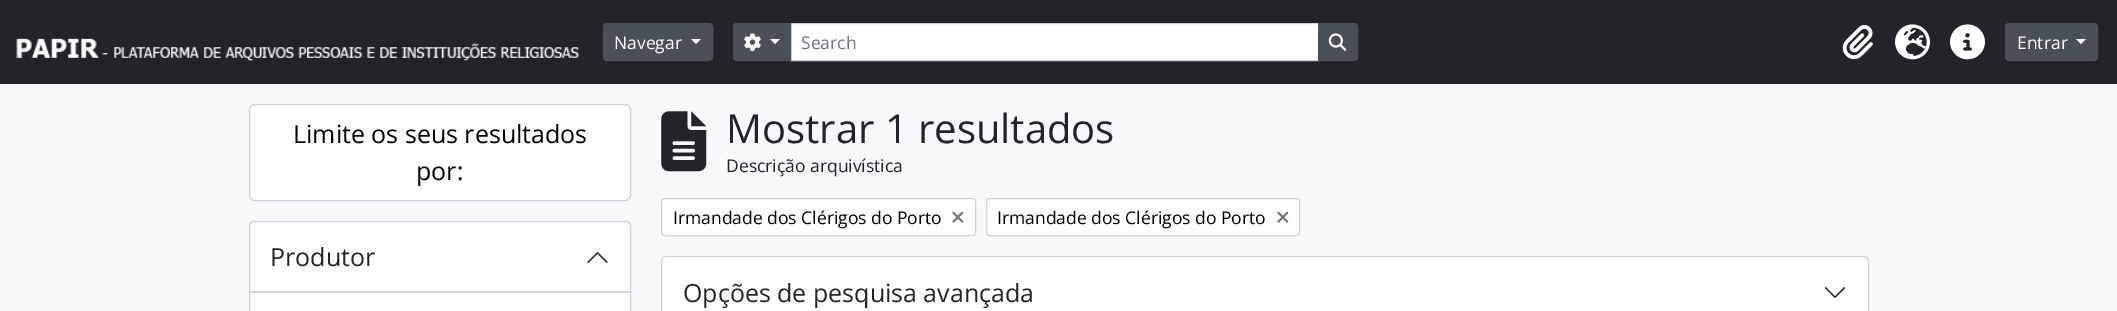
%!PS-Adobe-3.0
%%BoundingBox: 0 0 2117 311
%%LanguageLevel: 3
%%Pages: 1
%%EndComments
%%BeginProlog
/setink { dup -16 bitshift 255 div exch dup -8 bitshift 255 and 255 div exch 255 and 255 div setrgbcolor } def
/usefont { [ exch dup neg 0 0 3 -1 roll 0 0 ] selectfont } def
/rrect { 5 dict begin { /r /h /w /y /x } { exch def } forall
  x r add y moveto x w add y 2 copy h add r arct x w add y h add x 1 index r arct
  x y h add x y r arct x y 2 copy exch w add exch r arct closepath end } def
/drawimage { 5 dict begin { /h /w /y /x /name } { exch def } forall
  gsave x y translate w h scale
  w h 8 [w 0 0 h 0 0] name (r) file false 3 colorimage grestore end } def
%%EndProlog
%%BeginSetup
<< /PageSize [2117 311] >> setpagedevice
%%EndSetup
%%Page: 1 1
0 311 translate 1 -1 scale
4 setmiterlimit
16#F8F9FA setink
0 0 2117 311 rectfill
16#212529 setink
0 0 2117 84 rectfill
(img1.raw) 16 38 564 23 drawimage
16#495057 setink
603.5 23.5 109 37 3.5 rrect gsave fill grestore
stroke
/OpenSans-Regular 17.5 usefont
16#FFFFFF setink
614 49 moveto (Navegar) show
691 39 moveto 701 39 lineto 696 44 lineto closepath fill
790.5 23.5 moveto 1318.5 23.5 lineto 1318.5 60.5 lineto 790.5 60.5 lineto closepath gsave fill grestore
16#CED4DA setink
stroke
16#495057 setink
737 23.5 moveto 790.5 23.5 lineto 790.5 60.5 lineto 737 60.5 lineto 735 60.5 733.5 59 733.5 57 curveto 733.5 27 lineto 733.5 25 735 23.5 737 23.5 curveto closepath gsave fill grestore
stroke
(img2.raw) 744 33 17 18 drawimage
16#FFFFFF setink
770 39 moveto 780 39 lineto 775 44 lineto closepath fill
16#6C757D setink
801 49 moveto (Search) show
16#495057 setink
1318.5 23.5 moveto 1354 23.5 lineto 1356 23.5 1357.5 25 1357.5 27 curveto 1357.5 57 lineto 1357.5 59 1356 60.5 1354 60.5 curveto 1318.5 60.5 lineto closepath gsave fill grestore
stroke
(img3.raw) 1328 33 19 18 drawimage
(img4.raw) 1842 25 31 35 drawimage
(img5.raw) 1895 24 35 36 drawimage
(img6.raw) 1950 24 35 36 drawimage
2005.5 23.5 92 37 3.5 rrect gsave fill grestore
stroke
16#FFFFFF setink
2017 49 moveto (Entrar) show
2076 39 moveto 2086 39 lineto 2081 44 lineto closepath fill
249.5 104.5 381 96 5.5 rrect gsave fill grestore
16#CED4DA setink
stroke
/OpenSans-Regular 25 usefont
16#000000 setink
293 143 moveto (Limite os seus resultados) show
416 180 moveto (por:) show
16#FFFFFF setink
249.5 221.5 381 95 4.5 rrect gsave fill grestore
16#CED4DA setink
stroke
250 291 380 2 rectfill
16#212529 setink
270 266 moveto (Produtor) show
(img7.raw) 587 252 21 11 drawimage
(img8.raw) 661 111 46 61 drawimage
/OpenSans-Regular 40 usefont
726 143 moveto (Mostrar 1 resultados) show
/OpenSans-Regular 17.5 usefont
726 172 moveto (Descrição arquivística) show
16#FFFFFF setink
661.5 198.5 314 37 3.5 rrect gsave fill grestore
16#CED4DA setink
stroke
16#000000 setink
673 224 moveto (Irmandade dos Clérigos do Porto) show
(img9.raw) 952 211 12 12 drawimage
16#FFFFFF setink
986.5 198.5 313 37 3.5 rrect gsave fill grestore
16#CED4DA setink
stroke
16#000000 setink
997 224 moveto (Irmandade dos Clérigos do Porto) show
(img9.raw) 1277 211 12 12 drawimage
16#FFFFFF setink
661.5 256.5 1207 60 4.5 rrect gsave fill grestore
16#CED4DA setink
stroke
/OpenSans-Regular 25 usefont
16#212529 setink
683 302 moveto (Opções de pesquisa avançada) show
(img10.raw) 1824 287 22 11 drawimage
showpage
%%EOF
